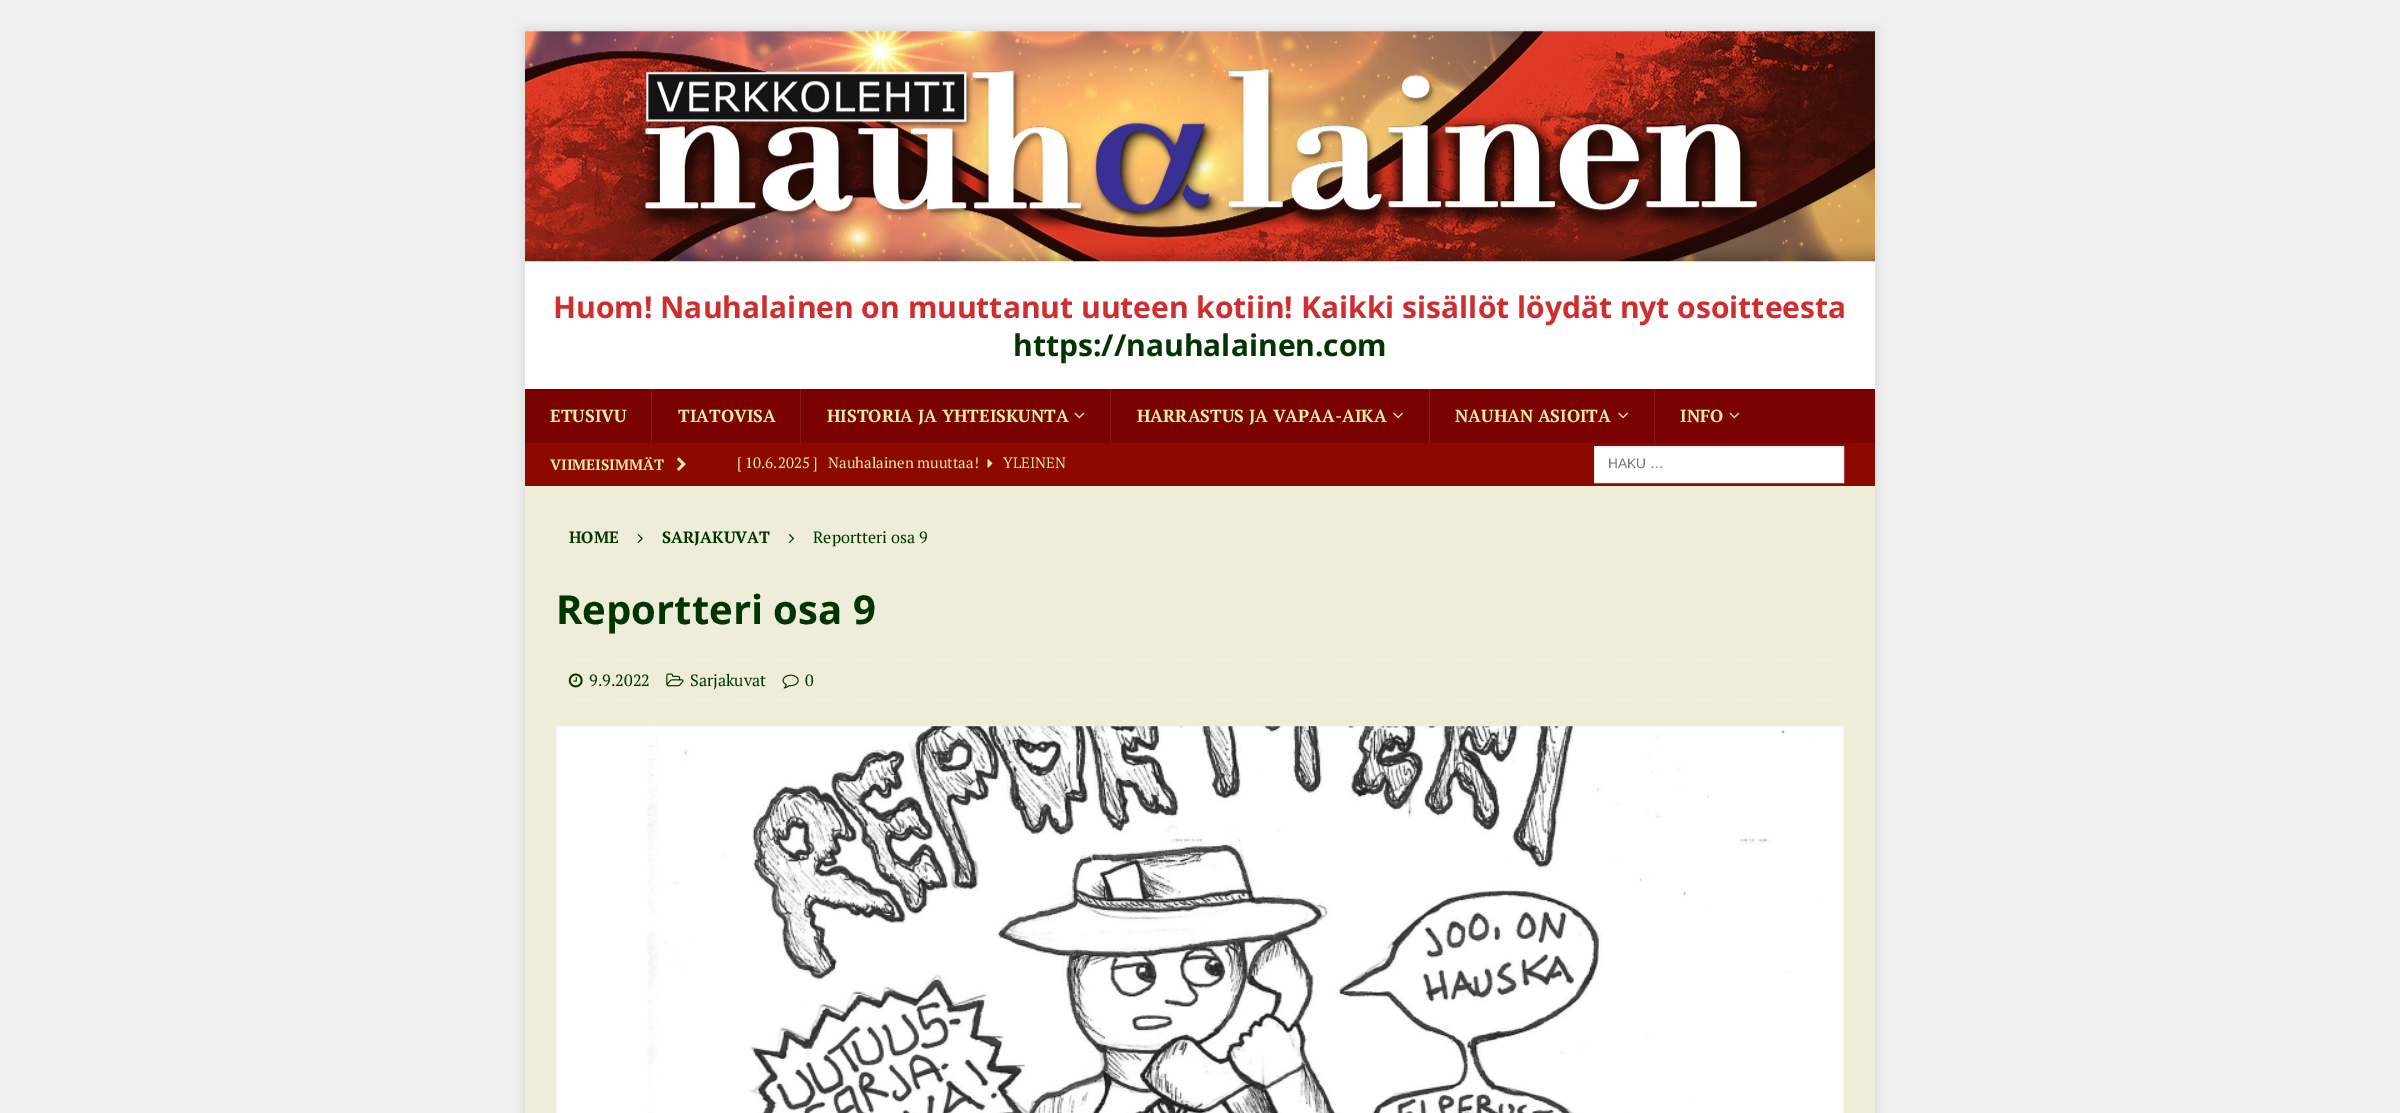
%!PS-Adobe-3.0
%%BoundingBox: 0 0 2400 1113
%%LanguageLevel: 3
%%Pages: 1
%%EndComments
%%BeginProlog
/setink { dup -16 bitshift 255 div exch dup -8 bitshift 255 and 255 div exch 255 and 255 div setrgbcolor } def
/usefont { [ exch dup neg 0 0 3 -1 roll 0 0 ] selectfont } def
/setalpha { dup .setfillconstantalpha .setstrokeconstantalpha } def
/rrect { 5 dict begin { /r /h /w /y /x } { exch def } forall
  x r add y moveto x w add y 2 copy h add r arct x w add y h add x 1 index r arct
  x y h add x y r arct x y 2 copy exch w add exch r arct closepath end } def
/softshadow { 12 dict begin { /a /b /q /h /w /y /x } { exch def } forall gsave /was 0 def
  9 -2 -9 { dup b mul 4 div /e exch def 1 sub .425 mul 2.718 exch exp 1 add a .99 .min exch div /now exch def
    1 1 now sub 1 was sub div sub setalpha /was now def
    w h .min e 2 mul add 0 gt { x e sub y e sub w e 2 mul add h e 2 mul add
      q e add b .6 mul add w h .min 2 div e add .min 0 .max rrect fill } if } for grestore end } def
/drawimage { 5 dict begin { /h /w /y /x /name } { exch def } forall
  gsave x y translate w h scale
  w h 8 [w 0 0 h 0 0] name (r) file false 3 colorimage grestore end } def
%%EndProlog
%%BeginSetup
<< /PageSize [2400 1113] /PageUsesTransparency true >> setpagedevice
%%EndSetup
%%Page: 1 1
0 .pushpdf14devicefilter
0 1113 translate 1 -1 scale
4 setmiterlimit
16#F0F0F0 setink
0 0 2400 1113 rectfill
16#323232 setink
525 31 1350 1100 0 6 0.17 softshadow
16#FFFFFF setink
525 31 1350 358 rectfill
(img1.raw) 525 31 1350 231 drawimage
/OpenSans-Bold 30 usefont
16#CF2E2E setink
553 318 moveto (Huom! Nauhalainen on muuttanut uuteen kotiin! Kaikki sisällöt löydät nyt osoitteesta) show
16#003500 setink
1013 356 moveto (https://nauhalainen.com) show
16#7A0202 setink
525 389 1350 54 rectfill
/PTSerif-Bold 17.5 usefont
16#EDED9C setink
550 422 moveto (ETUSIVU) show
16#871B1B setink
651 389 1 54 rectfill
16#EDED9C setink
678 422 moveto (TIATOVISA) show
16#871B1B setink
800 389 1 54 rectfill
16#EDED9C setink
827 422 moveto (HISTORIA JA YHTEISKUNTA) show
(img2.raw) 1074 412 11 7 drawimage
16#871B1B setink
1110 389 1 54 rectfill
16#EDED9C setink
1137 422 moveto (HARRASTUS JA VAPAA-AIKA) show
(img3.raw) 1393 412 10 7 drawimage
16#871B1B setink
1429 389 1 54 rectfill
16#EDED9C setink
1455 422 moveto (NAUHAN ASIOITA) show
(img3.raw) 1618 412 10 7 drawimage
16#871B1B setink
1654 389 1 54 rectfill
16#EDED9C setink
1680 422 moveto (INFO) show
(img2.raw) 1729 412 11 7 drawimage
16#8C0900 setink
525 443 1350 43 rectfill
/PTSerif-Bold 15 usefont
16#EDED9C setink
550 470 moveto (VIIMEISIMMÄT) show
(img4.raw) 677 457 9 14 drawimage
/PTSerif-Regular 15 usefont
737 468 moveto ([ 10.6.2025 ]) show
828 468 moveto (Nauhalainen muuttaa!) show
(img5.raw) 987 459 6 9 drawimage
1003 468 moveto (YLEINEN) show
16#FFFFFF setink
1594.5 446.5 moveto 1843.5 446.5 lineto 1843.5 482.5 lineto 1594.5 482.5 lineto closepath gsave fill grestore
16#EBEBEB setink
stroke
/LiberationSans-Regular 13.75 usefont
16#757575 setink
1608 468 moveto (HAKU …) show
16#EDEDDA setink
525 486 1350 627 rectfill
gsave
556 518 1288 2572 rectclip
16#F2F2E5 setink
1.2 setlinewidth
[1.25 1.25] 0 setdash
556 518 moveto 1844 518 lineto stroke
grestore
16#F2F2E5 setink
1.2 setlinewidth
[1.25 1.25] 0 setdash
556 558 moveto 1844 558 lineto stroke
/PTSerif-Bold 16.25 usefont
16#003500 setink
569 543 moveto (HOME) show
(img6.raw) 637 534 6 9 drawimage
662 543 moveto (SARJAKUVAT) show
(img7.raw) 788 534 7 9 drawimage
/PTSerif-Regular 16.25 usefont
813 543 moveto (Reportteri osa 9) show
/OpenSans-Bold 40 usefont
556 624 moveto (Reportteri osa 9) show
16#F2F2E5 setink
556 660.5 moveto 1844 660.5 lineto stroke
556 700.5 moveto 1844 700.5 lineto stroke
(img8.raw) 568 673 15 15 drawimage
/PTSerif-Regular 16.25 usefont
16#003500 setink
589 686 moveto (9.9.2022) show
(img9.raw) 666 673 18 14 drawimage
690 686 moveto (Sarjakuvat) show
(img10.raw) 782 674 17 15 drawimage
805 686 moveto (0) show
(img11.raw) 556 726 1288 387 drawimage
.poppdf14devicefilter showpage
%%EOF
